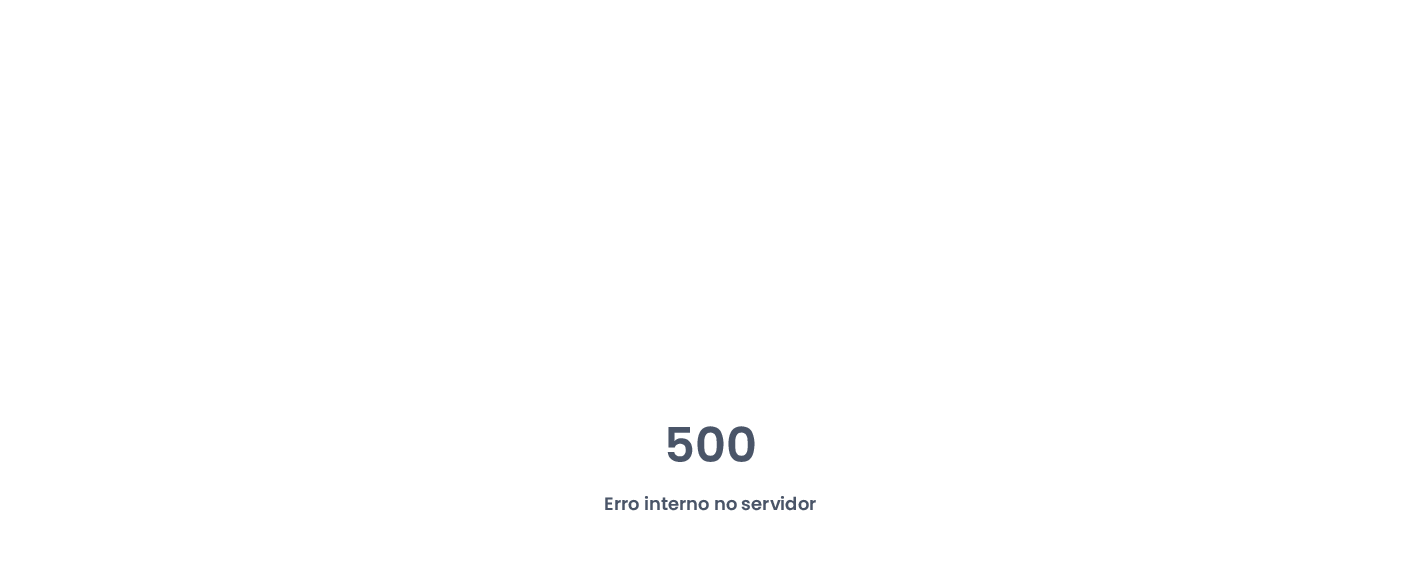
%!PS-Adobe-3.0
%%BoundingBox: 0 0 1421 579
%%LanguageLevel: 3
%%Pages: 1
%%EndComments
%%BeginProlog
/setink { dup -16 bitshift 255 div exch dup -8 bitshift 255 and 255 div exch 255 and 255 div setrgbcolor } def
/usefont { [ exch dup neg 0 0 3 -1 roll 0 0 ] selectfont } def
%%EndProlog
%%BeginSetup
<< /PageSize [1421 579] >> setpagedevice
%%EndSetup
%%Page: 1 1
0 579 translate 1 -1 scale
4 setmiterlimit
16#FFFFFF setink
0 0 1421 579 rectfill
/Poppins-SemiBold 48 usefont
16#4A5568 setink
664 462 moveto (500) show
/Poppins-SemiBold 18 usefont
604 510 moveto (Erro interno no servidor) show
showpage
%%EOF
